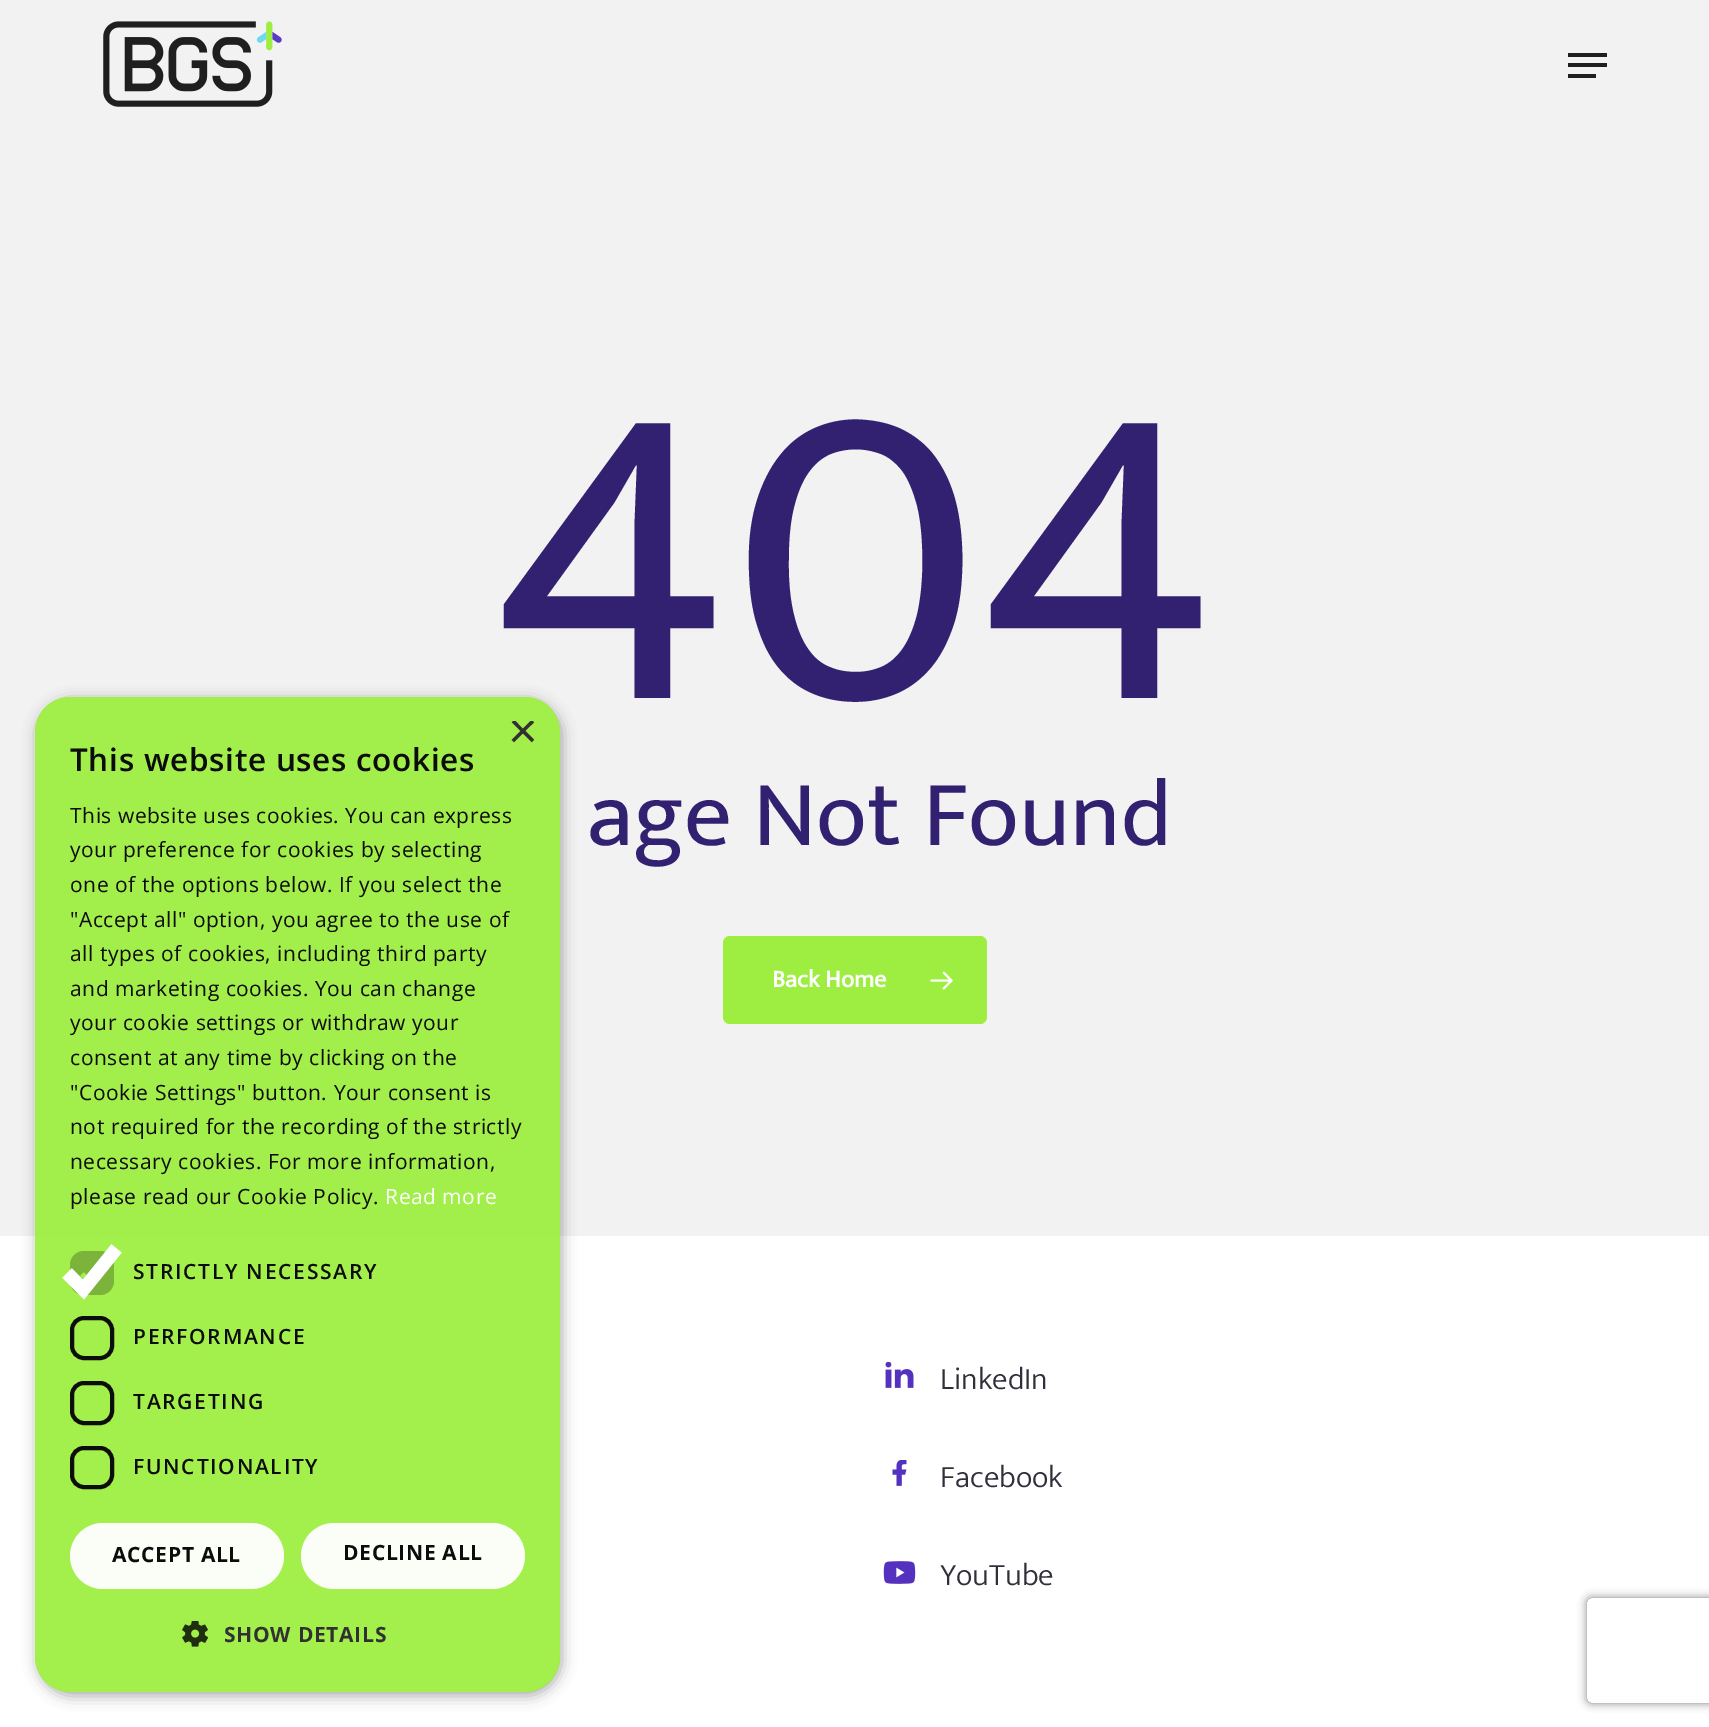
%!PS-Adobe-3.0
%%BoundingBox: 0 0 1709 1727
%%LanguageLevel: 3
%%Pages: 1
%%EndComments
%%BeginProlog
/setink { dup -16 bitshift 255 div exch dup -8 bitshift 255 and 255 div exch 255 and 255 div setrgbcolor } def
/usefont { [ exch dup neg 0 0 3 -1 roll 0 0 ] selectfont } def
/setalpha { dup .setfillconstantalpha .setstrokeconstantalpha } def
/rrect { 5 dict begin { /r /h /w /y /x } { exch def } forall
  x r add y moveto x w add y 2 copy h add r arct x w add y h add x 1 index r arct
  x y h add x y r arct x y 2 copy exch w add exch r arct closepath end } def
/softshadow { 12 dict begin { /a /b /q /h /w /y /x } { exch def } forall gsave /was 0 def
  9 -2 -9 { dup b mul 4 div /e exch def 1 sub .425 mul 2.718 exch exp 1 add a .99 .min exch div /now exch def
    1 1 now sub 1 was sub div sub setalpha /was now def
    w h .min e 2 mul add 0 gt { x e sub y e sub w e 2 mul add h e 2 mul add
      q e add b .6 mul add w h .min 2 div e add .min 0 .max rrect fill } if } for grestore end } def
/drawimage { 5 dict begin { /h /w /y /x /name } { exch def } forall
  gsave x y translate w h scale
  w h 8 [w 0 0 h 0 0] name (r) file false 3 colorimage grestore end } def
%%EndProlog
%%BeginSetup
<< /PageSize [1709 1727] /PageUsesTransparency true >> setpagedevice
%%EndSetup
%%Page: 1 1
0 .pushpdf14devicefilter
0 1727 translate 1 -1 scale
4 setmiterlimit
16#F2F2F2 setink
0 0 1709 1727 rectfill
16#FFFFFF setink
0 1236 1709 491 rectfill
gsave
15 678 moveto 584 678 lineto 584 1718 lineto 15 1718 lineto closepath 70 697 moveto 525 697 lineto 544.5 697 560 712.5 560 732 curveto 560 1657 lineto 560 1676.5 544.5 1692 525 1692 curveto 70 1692 lineto 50.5 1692 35 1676.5 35 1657 curveto 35 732 lineto 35 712.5 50.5 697 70 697 curveto closepath eoclip newpath
16#000000 setink
37 700 525 996 35 7 0.33 softshadow
grestore
/Mukta-Regular 438 usefont
16#322070 setink
495 698 moveto (404) show
0.95 setalpha
16#9EEE41 setink
35 697 525 995 35 rrect fill
gsave
508 721 26 26 rectclip
/LiberationSans-Regular 51 usefont
1 setalpha
16#313131 setink
508 748 moveto (×) show
grestore
/OpenSans-SemiBold 31.5 usefont
1 setalpha
16#0C0C0C setink
70 771 moveto 0.7 0 (This website uses cookies) ashow
/OpenSans-Regular 21 usefont
70 823 moveto 0.55 0 (This website uses cookies. You can express) ashow
70 857 moveto 0.55 0 (your preference for cookies by selecting) ashow
70 892 moveto 0.55 0 (one of the options below. If you select the) ashow
70 927 moveto 0.55 0 ("Accept all" option, you agree to the use of) ashow
70 961 moveto 0.55 0 (all types of cookies, including third party) ashow
70 996 moveto 0.55 0 (and marketing cookies. You can change) ashow
70 1030 moveto 0.55 0 (your cookie settings or withdraw your) ashow
70 1065 moveto 0.55 0 (consent at any time by clicking on the) ashow
70 1100 moveto 0.55 0 ("Cookie Settings" button. Your consent is) ashow
70 1134 moveto 0.55 0 (not required for the recording of the strictly) ashow
70 1169 moveto 0.55 0 (necessary cookies. For more information,) ashow
70 1204 moveto 0.55 0 (please read our Cookie Policy.) ashow
16#FFFFFF setink
385 1204 moveto 0.55 0 (Read more) ashow
16#7CB43B setink
70 1251 44 44 14 rrect fill
16#A3EF4B setink
4.6 setlinewidth
82 1274 moveto 88 1280 lineto 101.5 1266.5 lineto stroke
16#FFFFFF setink
13.2 setlinewidth
67 1273 moveto 83.5 1289.5 lineto 116.5 1248.5 lineto stroke
/OpenSans-SemiBold 21 usefont
16#0C0C0C setink
133 1279 moveto 1.75 0 (STRICTLY NECESSARY) ashow
16#0D0D0D setink
4 setlinewidth
72 1318 40 40 12 rrect stroke
16#0C0C0C setink
133 1344 moveto 1.75 0 (PERFORMANCE) ashow
16#0D0D0D setink
72 1383 40 40 12 rrect stroke
16#0C0C0C setink
133 1409 moveto 1.75 0 (TARGETING) ashow
16#0D0D0D setink
72 1448 40 39 12 rrect stroke
16#0C0C0C setink
133 1474 moveto 1.75 0 (FUNCTIONALITY) ashow
0.95 setalpha
16#FFFFFF setink
70 1523 214 66 33 rrect fill
/OpenSans-Bold 21 usefont
1 setalpha
16#0C0C0C setink
112 1562 moveto 0.7 0 (ACCEPT ALL) ashow
0.95 setalpha
16#FFFFFF setink
301 1523 224 66 33 rrect fill
1 setalpha
16#0C0C0C setink
343 1560 moveto 0.7 0 (DECLINE ALL) ashow
(img1.raw) 182 1621 26 26 drawimage
16#313131 setink
224 1642 moveto 0.7 0 (SHOW DETAILS) ashow
(img2.raw) 103 21 179 86 drawimage
[
    [1568 53 39 4 16#1F1F1F]
    [1568 74 28 4 16#1F1F1F]
    [1568 63 39 4 16#1F1F1F]
] { aload pop setink rectfill } forall
/Mukta-Regular 94.5 usefont
16#322070 setink
587 845 moveto (age Not Found) show
16#9EEE41 setink
723 936 264 88 7 rrect fill
/Mukta-Bold 24.5 usefont
16#FFFFFF setink
772 987 moveto (Back Home) show
(img3.raw) 930 971 23 19 drawimage
(img4.raw) 885 1362 29 26 drawimage
/Mukta-Light 31.5 usefont
16#302F3A setink
940 1389 moveto (LinkedIn) show
(img5.raw) 892 1460 15 26 drawimage
940 1487 moveto (Facebook) show
(img6.raw) 883 1561 33 23 drawimage
940 1585 moveto (YouTube) show
gsave
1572 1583 moveto 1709 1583 lineto 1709 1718 lineto 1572 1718 lineto closepath 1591 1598 moveto 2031 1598 lineto 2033 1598 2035 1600 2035 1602 curveto 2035 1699 lineto 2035 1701 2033 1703 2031 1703 curveto 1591 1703 lineto 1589 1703 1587 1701 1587 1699 curveto 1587 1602 lineto 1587 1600 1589 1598 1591 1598 curveto closepath eoclip newpath
16#808080 setink
1587 1598 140 105 4 4.5 1 softshadow
grestore
.poppdf14devicefilter showpage
%%EOF
